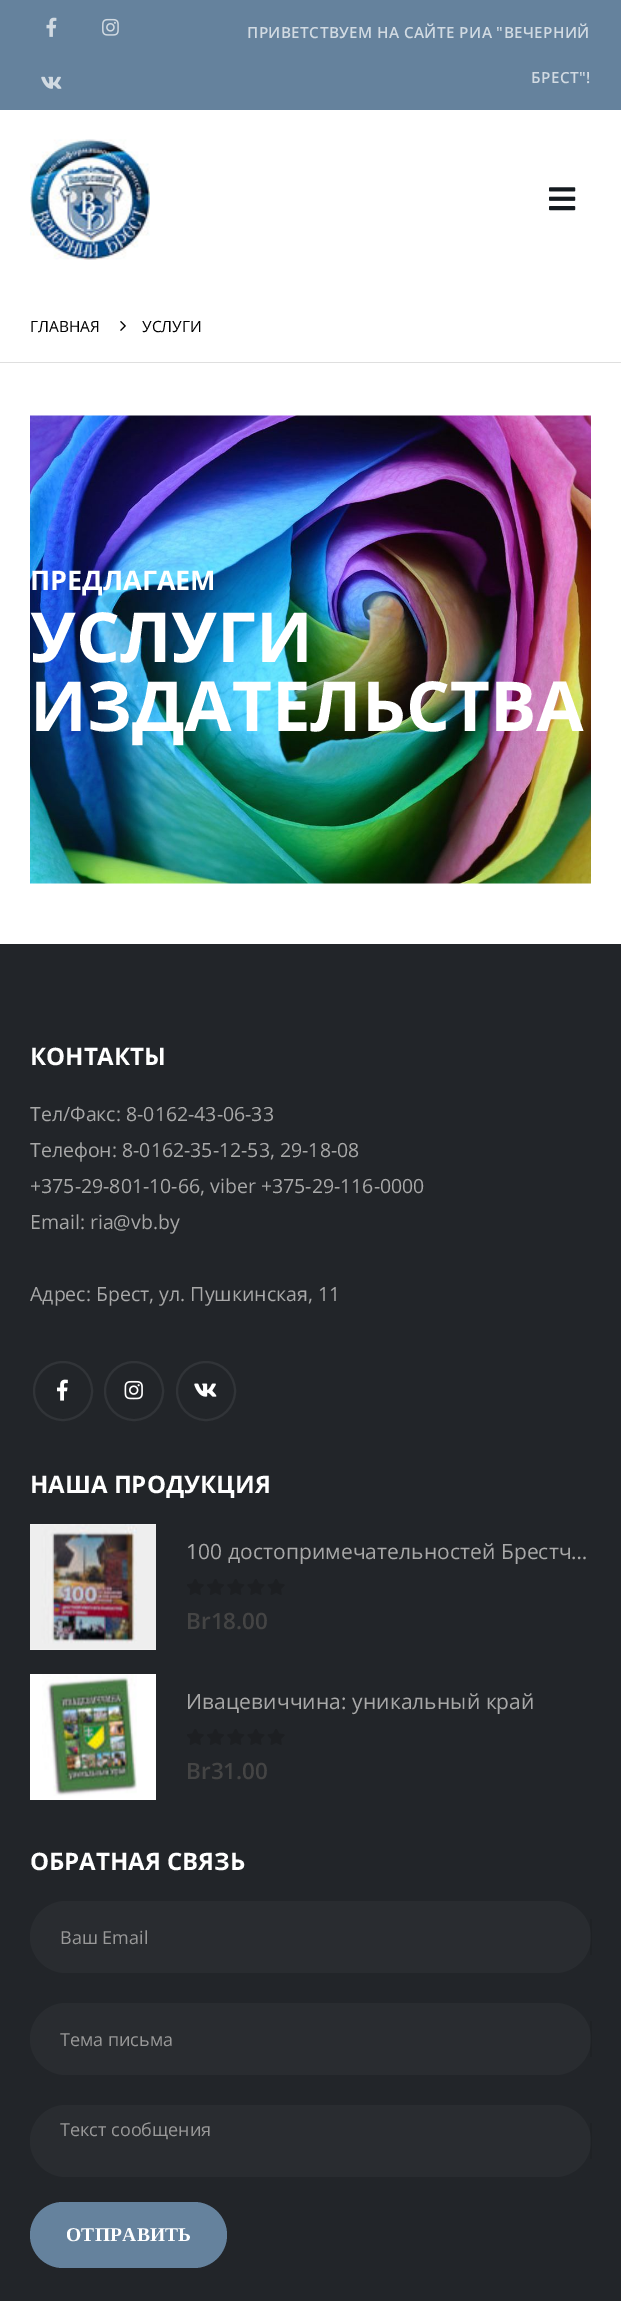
%!PS-Adobe-3.0
%%BoundingBox: 0 0 621 2301
%%LanguageLevel: 3
%%Pages: 1
%%EndComments
%%BeginProlog
/setink { dup -16 bitshift 255 div exch dup -8 bitshift 255 and 255 div exch 255 and 255 div setrgbcolor } def
/usefont { [ exch dup neg 0 0 3 -1 roll 0 0 ] selectfont } def
/setalpha { dup .setfillconstantalpha .setstrokeconstantalpha } def
/disc { newpath 0 360 arc closepath } def
/rrect { 5 dict begin { /r /h /w /y /x } { exch def } forall
  x r add y moveto x w add y 2 copy h add r arct x w add y h add x 1 index r arct
  x y h add x y r arct x y 2 copy exch w add exch r arct closepath end } def
/drawimage { 5 dict begin { /h /w /y /x /name } { exch def } forall
  gsave x y translate w h scale
  w h 8 [w 0 0 h 0 0] name (r) file false 3 colorimage grestore end } def
%%EndProlog
%%BeginSetup
<< /PageSize [621 2301] /PageUsesTransparency true >> setpagedevice
%%EndSetup
%%Page: 1 1
0 .pushpdf14devicefilter
0 2301 translate 1 -1 scale
4 setmiterlimit
16#FFFFFF setink
0 0 621 2301 rectfill
16#65829D setink
0 0 621 110 rectfill
(img1.raw) 46 17 11 20 drawimage
(img2.raw) 102 18 17 18 drawimage
(img3.raw) 41 76 21 13 drawimage
/OpenSans-SemiBold 15.3 usefont
16#D1DAE2 setink
247 38 moveto 0.4 0 (ПРИВЕТСТВУЕМ НА САЙТЕ РИА "ВЕЧЕРНИЙ) ashow
531 83 moveto 0.4 0 (БРЕСТ"!) ashow
(img4.raw) 30 139 120 121 drawimage
(img5.raw) 549 187 27 24 drawimage
16#DFDFDF setink
0 362 621 1 rectfill
/OpenSans-Regular 15.5 usefont
16#000000 setink
30 332 moveto (ГЛАВНАЯ) show
(img6.raw) 120 321 6 10 drawimage
142 332 moveto (УСЛУГИ) show
(img7.raw) 30 415 561 469 drawimage
/OpenSans-Bold 27 usefont
16#FFFFFF setink
30 590 moveto (ПРЕДЛАГАЕМ) show
/OpenSans-Bold 69 usefont
30 662 moveto (УСЛУГИ) show
30 731 moveto (ИЗДАТЕЛЬСТВА) show
16#222529 setink
0 944 621 1357 rectfill
/OpenSans-Bold 24 usefont
16#FFFFFF setink
30 1065 moveto (КОНТАКТЫ) show
/OpenSans-Regular 19.5 usefont
16#A8A8A8 setink
[
    [(Тел/Факс: 8-0162-43-06-33) 30 1121]
    [(Телефон: 8-0162-35-12-53, 29-18-08) 30 1157]
    [(+375-29-801-10-66, viber +375-29-116-0000) 30 1193]
    [(Email: ria@vb.by) 30 1229]
    [(Адрес: Брест, ул. Пушкинская, 11) 30 1301]
] { aload pop moveto show } forall
16#313438 setink
2 setlinewidth
63 1391 29 disc stroke
(img8.raw) 57 1379 11 22 drawimage
134 1391 29 disc stroke
(img9.raw) 124 1380 19 20 drawimage
206 1391 29 disc stroke
(img10.raw) 194 1383 23 14 drawimage
/OpenSans-Bold 24 usefont
16#FFFFFF setink
30 1493 moveto (НАША ПРОДУКЦИЯ) show
(img11.raw) 30 1524 126 126 drawimage
/OpenSans-Regular 21 usefont
16#A8A8A8 setink
186 1559 moveto 0.1 0 (100 достопримечательностей Брестч…) ashow
(img12.raw) 187 1579 98 16 drawimage
/OpenSans-SemiBold 22.5 usefont
16#444444 setink
186 1629 moveto (Br18.00) show
16#FFFFFF setink
30 1674 126 126 rectfill
(img13.raw) 42 1674 95 122 drawimage
/OpenSans-Regular 21 usefont
16#A8A8A8 setink
186 1709 moveto 0.1 0 (Ивацевиччина: уникальный край) ashow
(img12.raw) 187 1729 98 16 drawimage
/OpenSans-SemiBold 22.5 usefont
16#444444 setink
186 1779 moveto (Br31.00) show
/OpenSans-Bold 24 usefont
16#FFFFFF setink
30 1870 moveto (ОБРАТНАЯ СВЯЗЬ) show
16#292C30 setink
30 1901 561 72 36 rrect fill
0.09 setalpha
16#000000 setink
590 1919 2 36 rectfill
/OpenSans-Regular 18 usefont
1 setalpha
16#999999 setink
60 1944 moveto (Ваш Email) show
16#292C30 setink
30 2003 561 72 36 rrect fill
0.09 setalpha
16#000000 setink
590 2021 2 36 rectfill
1 setalpha
16#999999 setink
60 2046 moveto (Тема письма) show
16#292C30 setink
30 2105 561 72 36 rrect fill
0.09 setalpha
16#000000 setink
590 2123 2 36 rectfill
1 setalpha
16#999999 setink
60 2136 moveto (Текст сообщения) show
16#65829D setink
30 2202 197 66 33 rrect fill
/LiberationSerif-Bold 19.5 usefont
16#FFFFFF setink
66 2241 moveto 0.25 0 (ОТПРАВИТЬ) ashow
.poppdf14devicefilter showpage
%%EOF
